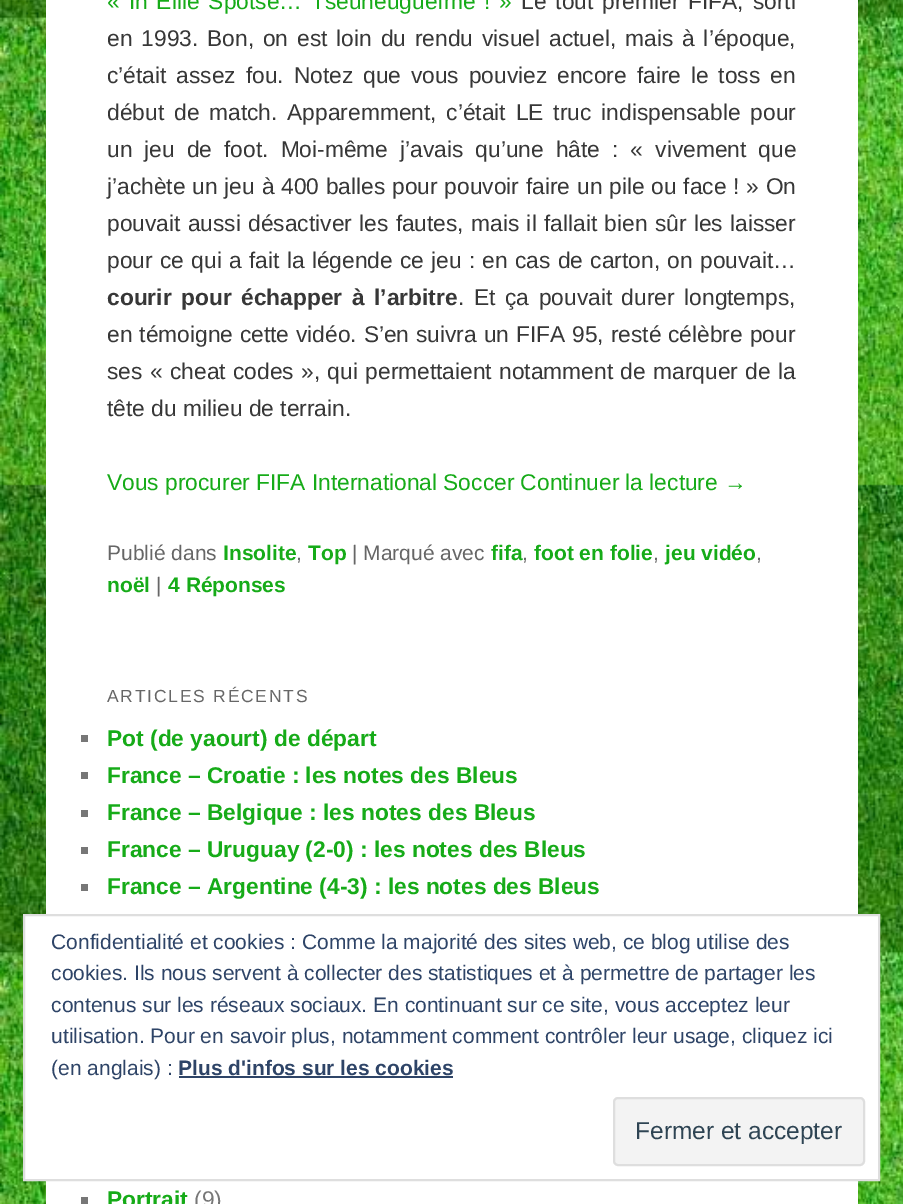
%!PS-Adobe-3.0
%%BoundingBox: 0 0 903 1204
%%LanguageLevel: 3
%%Pages: 1
%%EndComments
%%BeginProlog
/setink { dup -16 bitshift 255 div exch dup -8 bitshift 255 and 255 div exch 255 and 255 div setrgbcolor } def
/usefont { [ exch dup neg 0 0 3 -1 roll 0 0 ] selectfont } def
/rrect { 5 dict begin { /r /h /w /y /x } { exch def } forall
  x r add y moveto x w add y 2 copy h add r arct x w add y h add x 1 index r arct
  x y h add x y r arct x y 2 copy exch w add exch r arct closepath end } def
/drawimage { 5 dict begin { /h /w /y /x /name } { exch def } forall
  gsave x y translate w h scale
  w h 8 [w 0 0 h 0 0] name (r) file false 3 colorimage grestore end } def
%%EndProlog
%%BeginSetup
<< /PageSize [903 1204] >> setpagedevice
%%EndSetup
%%Page: 1 1
0 1204 translate 1 -1 scale
4 setmiterlimit
16#FFFFFF setink
0 0 903 1204 rectfill
(img1.raw) 0 0 903 1204 drawimage
46 0 812 1204 rectfill
/LiberationSans-Regular 22.75 usefont
16#16AB18 setink
107 9 moveto 2.6 0 32 (« Ih Eille Spotse… Tseuneugueïme ! ») widthshow
16#373737 setink
521 9 moveto 2.6 0 32 (Le tout premier FIFA, sorti) widthshow
107 46 moveto 2.6 0 32 (en 1993. Bon, on est loin du rendu visuel actuel, mais à l’époque,) widthshow
107 83 moveto 3.6 0 32 (c’était assez fou. Notez que vous pouviez encore faire le toss en) widthshow
107 120 moveto 3.6 0 32 (début de match. Apparemment, c’était LE truc indispensable pour) widthshow
107 157 moveto 5.75 0 32 (un jeu de foot. Moi-même j’avais qu’une hâte : « vivement que) widthshow
107 194 moveto 0.5 0 32 (j’achète un jeu à 400 balles pour pouvoir faire un pile ou face ! » On) widthshow
107 231 moveto 1 0 32 (pouvait aussi désactiver les fautes, mais il fallait bien sûr les laisser) widthshow
107 268 moveto 1 0 32 (pour ce qui a fait la légende ce jeu : en cas de carton, on pouvait…) widthshow
/LiberationSans-Bold 22.75 usefont
107 305 moveto 3.25 0 32 (courir pour échapper à l’arbitre) widthshow
/LiberationSans-Regular 22.75 usefont
458 305 moveto 3.25 0 32 (. Et ça pouvait durer longtemps,) widthshow
107 342 moveto 0.6 0 32 (en témoigne cette vidéo. S’en suivra un FIFA 95, resté célèbre pour) widthshow
107 379 moveto 1.1 0 32 (ses « cheat codes », qui permettaient notamment de marquer de la) widthshow
107 416 moveto (tête du milieu de terrain.) show
16#16AB18 setink
107 490 moveto (Vous procurer FIFA International Soccer Continuer la lecture →) show
/LiberationSans-Regular 21 usefont
16#666666 setink
107 560 moveto (Publié dans) show
/LiberationSans-Bold 21 usefont
16#16AB18 setink
223 560 moveto (Insolite) show
/LiberationSans-Regular 21 usefont
16#666666 setink
296 560 moveto (,) show
/LiberationSans-Bold 21 usefont
16#16AB18 setink
308 560 moveto (Top) show
/LiberationSans-Regular 21 usefont
16#666666 setink
352 560 moveto (| Marqué avec) show
/LiberationSans-Bold 21 usefont
16#16AB18 setink
491 560 moveto (fifa) show
/LiberationSans-Regular 21 usefont
16#666666 setink
522 560 moveto (,) show
/LiberationSans-Bold 21 usefont
16#16AB18 setink
534 560 moveto (foot en folie) show
/LiberationSans-Regular 21 usefont
16#666666 setink
653 560 moveto (,) show
/LiberationSans-Bold 21 usefont
16#16AB18 setink
665 560 moveto (jeu vidéo) show
/LiberationSans-Regular 21 usefont
16#666666 setink
756 560 moveto (,) show
/LiberationSans-Bold 21 usefont
16#16AB18 setink
107 592 moveto (noël) show
/LiberationSans-Regular 21 usefont
16#666666 setink
156 592 moveto (|) show
/LiberationSans-Bold 21 usefont
16#16AB18 setink
168 592 moveto (4 Réponses) show
/LiberationSans-Regular 17.5 usefont
16#666666 setink
107 702 moveto 1.75 0 (ARTICLES RÉCENTS) ashow
16#777777 setink
81 735 7 7 rectfill
/LiberationSans-Bold 22.75 usefont
16#16AB18 setink
107 746 moveto (Pot \(de yaourt\) de départ) show
16#777777 setink
81 772 7 7 rectfill
16#16AB18 setink
107 783 moveto (France – Croatie : les notes des Bleus) show
16#777777 setink
81 810 7 7 rectfill
16#16AB18 setink
107 820 moveto (France – Belgique : les notes des Bleus) show
16#777777 setink
81 847 7 7 rectfill
16#16AB18 setink
107 857 moveto (France – Uruguay \(2-0\) : les notes des Bleus) show
16#777777 setink
81 884 7 7 rectfill
16#16AB18 setink
107 894 moveto (France – Argentine \(4-3\) : les notes des Bleus) show
16#777777 setink
81 1197 7 7 rectfill
16#16AB18 setink
107 1207 moveto (Portrait) show
/LiberationSans-Regular 22.75 usefont
16#777777 setink
194 1207 moveto (\(9\)) show
16#FFFFFF setink
24 915 moveto 879 915 lineto 879 1180 lineto 24 1180 lineto closepath gsave fill grestore
16#DEDEDE setink
2 setlinewidth
stroke
/LiberationSans-Regular 21 usefont
16#2E4467 setink
[
    [(Confidentialité et cookies : Comme la majorité des sites web, ce blog utilise des) 51 949]
    [(cookies. Ils nous servent à collecter des statistiques et à permettre de partager les) 51 980]
    [(contenus sur les réseaux sociaux. En continuant sur ce site, vous acceptez leur) 51 1012]
    [(utilisation. Pour en savoir plus, notamment comment contrôler leur usage, cliquez ici) 51 1043]
    [(\(en anglais\) :) 51 1075]
] { aload pop moveto show } forall
/LiberationSans-Bold 21 usefont
178 1075 moveto (Plus d'infos sur les cookies) show
179 1076 274 2 rectfill
16#F3F3F3 setink
614 1098 250 67 4 rrect gsave fill grestore
16#DEDEDE setink
stroke
/LiberationSans-Regular 24.5 usefont
16#2E4453 setink
635 1139 moveto (Fermer et accepter) show
showpage
%%EOF
